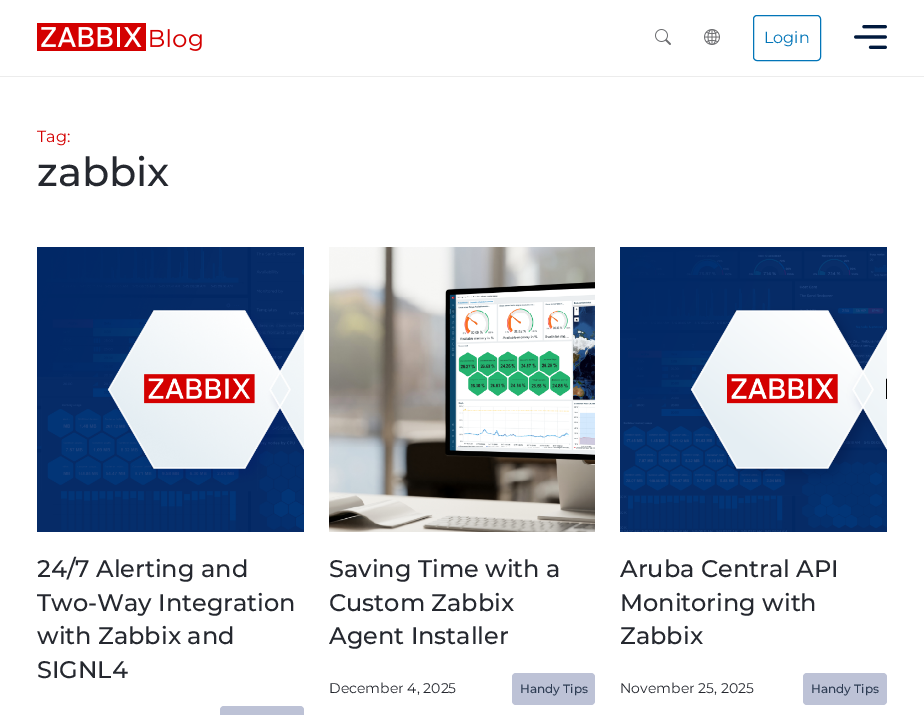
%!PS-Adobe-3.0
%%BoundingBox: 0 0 924 715
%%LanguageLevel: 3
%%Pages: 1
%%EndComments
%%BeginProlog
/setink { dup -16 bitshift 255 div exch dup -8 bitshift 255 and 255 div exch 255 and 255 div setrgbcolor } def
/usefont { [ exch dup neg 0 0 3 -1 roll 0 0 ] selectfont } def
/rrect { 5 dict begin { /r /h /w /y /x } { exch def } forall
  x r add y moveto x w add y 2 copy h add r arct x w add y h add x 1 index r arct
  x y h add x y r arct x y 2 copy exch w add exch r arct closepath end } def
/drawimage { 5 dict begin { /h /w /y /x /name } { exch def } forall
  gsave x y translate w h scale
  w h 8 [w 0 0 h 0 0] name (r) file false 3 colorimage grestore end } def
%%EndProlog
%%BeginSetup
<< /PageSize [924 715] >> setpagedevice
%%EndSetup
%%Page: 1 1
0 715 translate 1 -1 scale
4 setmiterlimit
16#FFFFFF setink
0 0 924 715 rectfill
16#ECECEC setink
0 76 924 1 rectfill
(img1.raw) 37 23 165 28 drawimage
(img2.raw) 655 29 16 16 drawimage
(img3.raw) 704 29 16 16 drawimage
16#0275B8 setink
753.5 15.5 67 45 3.5 rrect stroke
/Montserrat-Regular 16 usefont
764 43 moveto (Login) show
(img4.raw) 854 25 33 24 drawimage
16#D40000 setink
37 142 moveto (Tag:) show
/Montserrat-Medium 40 usefont
16#25282F setink
37 186 moveto (zabbix) show
(img5.raw) 37 247 267 285 drawimage
/Montserrat-Medium 24 usefont
[
    [(24/7 Alerting and) 37 577]
    [(Two-Way Integration) 37 611]
    [(with Zabbix and) 37 644]
    [(SIGNL4) 37 678]
] { aload pop moveto show } forall
16#BDC2D6 setink
220 706 84 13 4 rrect fill
(img6.raw) 329 247 266 285 drawimage
16#25282F setink
[
    [(Saving Time with a) 329 577]
    [(Custom Zabbix) 329 611]
    [(Agent Installer) 329 644]
] { aload pop moveto show } forall
/Montserrat-Regular 14 usefont
329 693 moveto (December 4, 2025) show
16#BDC2D6 setink
512 673 83 32 4 rrect fill
/Montserrat-Medium 12 usefont
16#2D3C53 setink
520 693 moveto (Handy Tips) show
(img7.raw) 620 247 267 285 drawimage
/Montserrat-Medium 24 usefont
16#25282F setink
[
    [(Aruba Central API) 620 577]
    [(Monitoring with) 620 611]
    [(Zabbix) 620 644]
] { aload pop moveto show } forall
/Montserrat-Regular 14 usefont
620 693 moveto (November 25, 2025) show
16#BDC2D6 setink
803 673 84 32 4 rrect fill
/Montserrat-Medium 12 usefont
16#2D3C53 setink
811 693 moveto (Handy Tips) show
showpage
%%EOF
